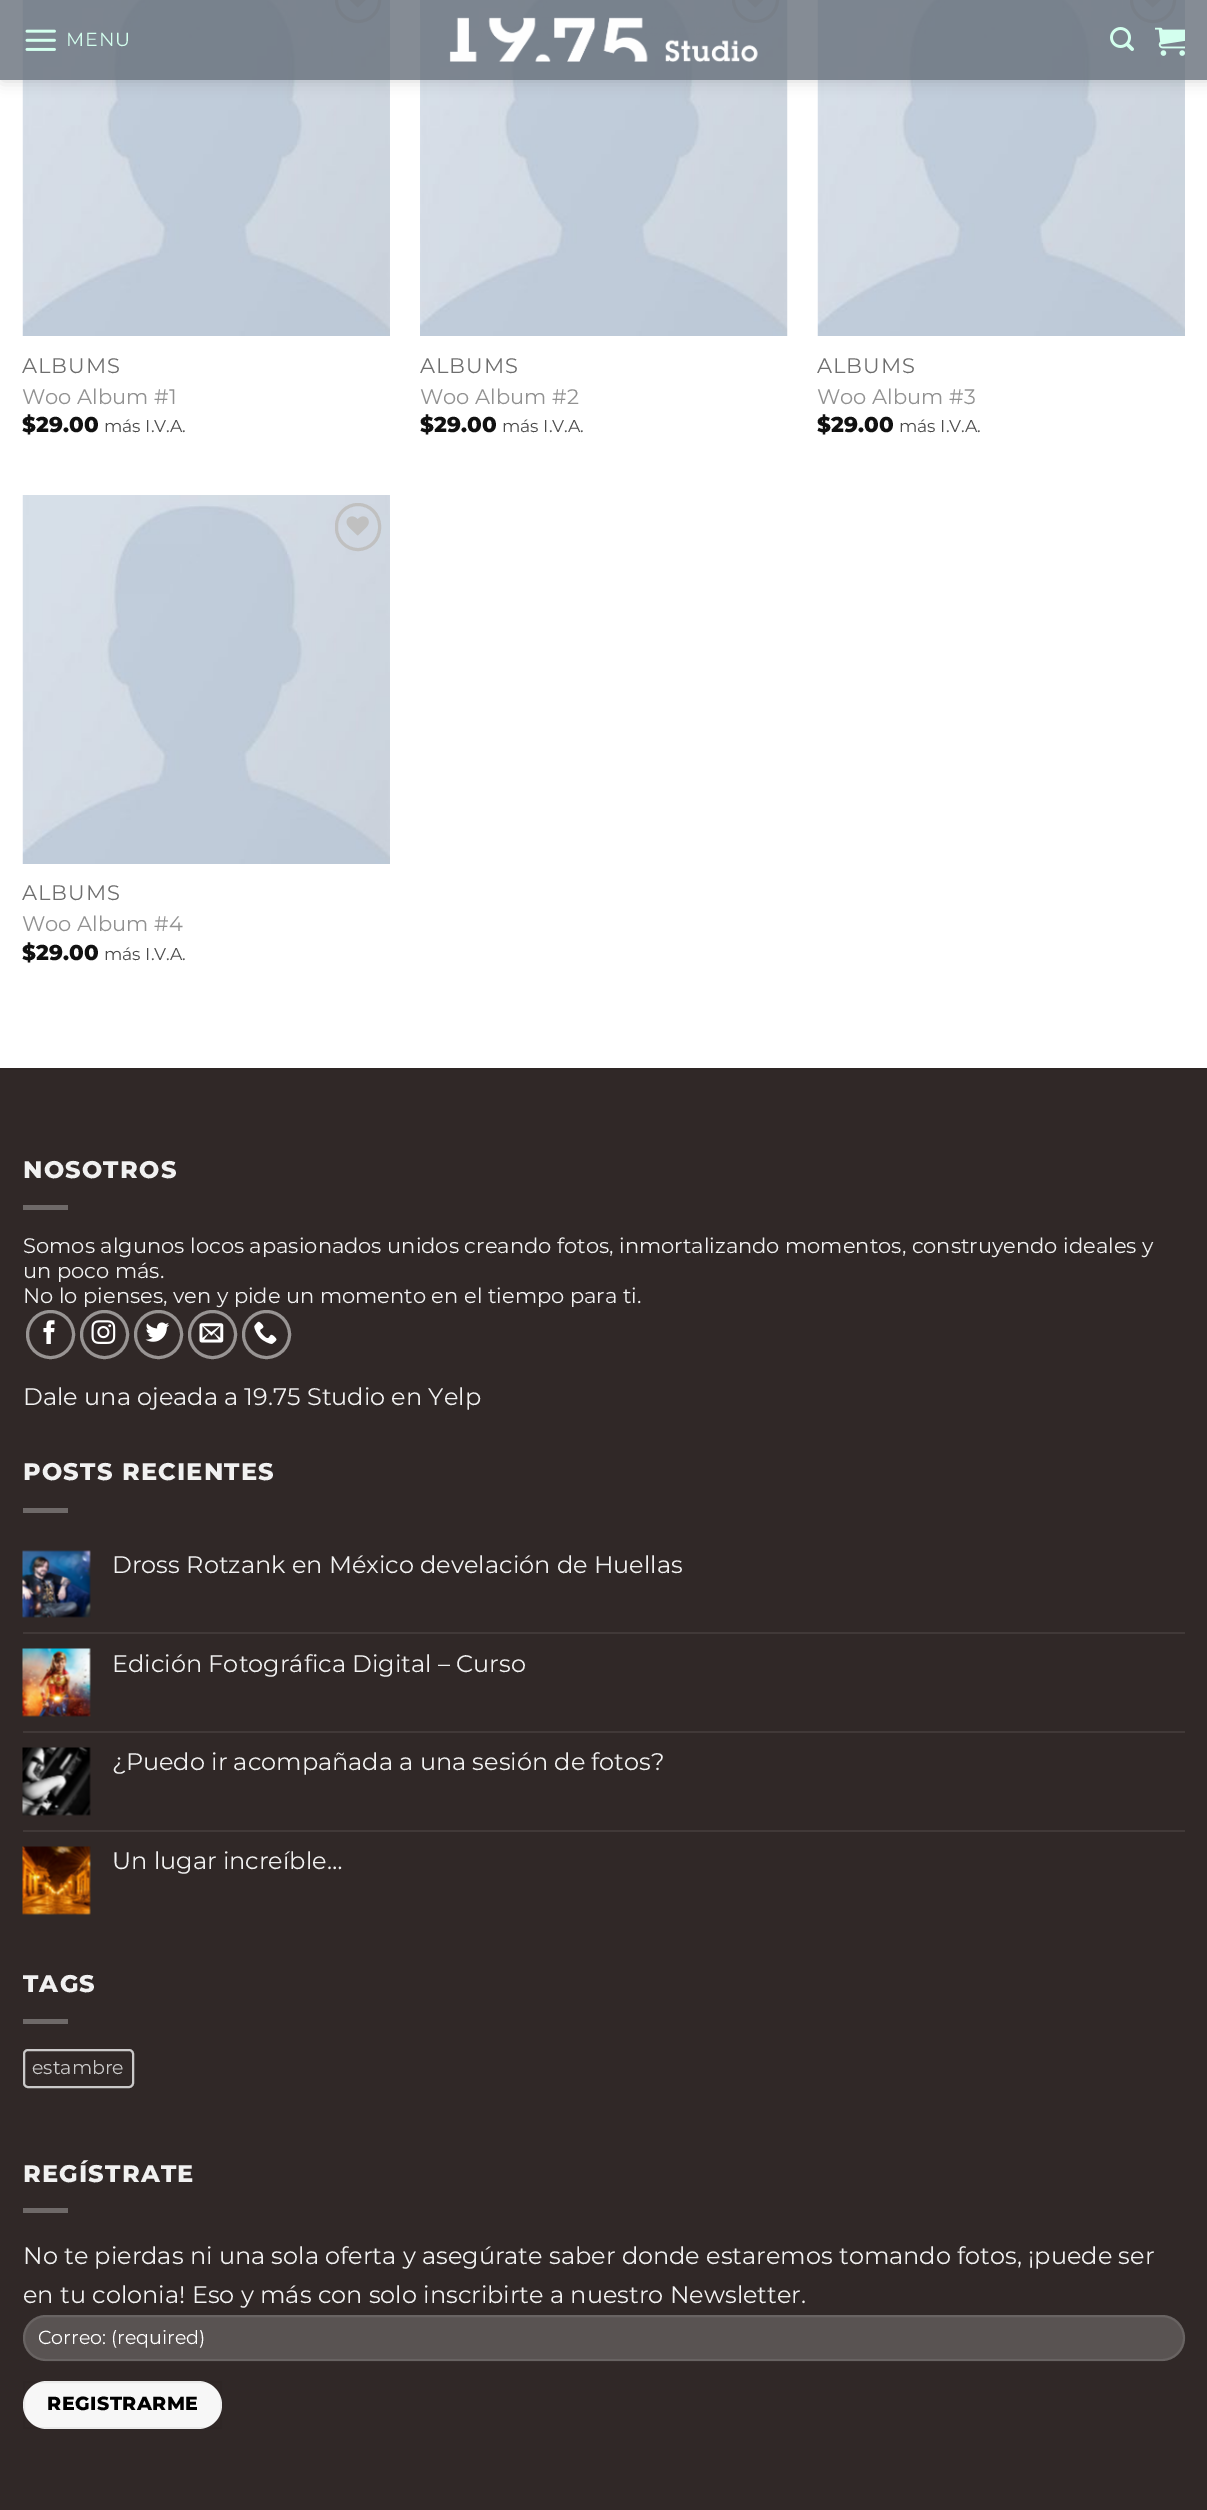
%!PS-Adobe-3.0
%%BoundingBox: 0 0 1207 2510
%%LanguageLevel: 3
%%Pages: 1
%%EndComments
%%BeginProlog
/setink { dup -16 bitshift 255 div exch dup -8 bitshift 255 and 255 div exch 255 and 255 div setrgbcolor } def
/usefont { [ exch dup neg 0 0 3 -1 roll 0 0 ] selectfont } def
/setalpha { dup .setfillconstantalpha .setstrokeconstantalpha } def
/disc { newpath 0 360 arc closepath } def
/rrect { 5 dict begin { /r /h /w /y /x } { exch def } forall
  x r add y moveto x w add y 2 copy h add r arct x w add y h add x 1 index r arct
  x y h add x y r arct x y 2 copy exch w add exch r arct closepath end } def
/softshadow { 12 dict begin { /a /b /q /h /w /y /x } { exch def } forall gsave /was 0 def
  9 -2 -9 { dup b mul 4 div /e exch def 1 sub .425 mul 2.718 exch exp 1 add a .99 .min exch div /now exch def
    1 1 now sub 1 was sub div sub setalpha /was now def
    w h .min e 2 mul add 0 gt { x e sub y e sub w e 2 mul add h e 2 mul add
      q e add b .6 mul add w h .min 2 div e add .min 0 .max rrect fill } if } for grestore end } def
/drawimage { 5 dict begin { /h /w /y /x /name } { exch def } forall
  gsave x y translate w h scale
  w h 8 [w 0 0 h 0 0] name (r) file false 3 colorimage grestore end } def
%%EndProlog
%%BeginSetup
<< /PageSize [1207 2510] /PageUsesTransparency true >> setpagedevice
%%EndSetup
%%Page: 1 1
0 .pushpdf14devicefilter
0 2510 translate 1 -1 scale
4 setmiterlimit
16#FFFFFF setink
0 0 1207 2510 rectfill
(img6.raw) 22 0 368 336 drawimage
16#C0C0C0 setink
3 setlinewidth
336.5 -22.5 43 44 21.5 rrect stroke
(img5.raw) 350 0 16 8 drawimage
(img8.raw) 420 0 368 336 drawimage
755.5 -0.5 22 disc stroke
(img7.raw) 747 0 16 8 drawimage
(img6.raw) 817 0 368 336 drawimage
1131.5 -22.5 43 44 21.5 rrect stroke
(img5.raw) 1145 0 16 8 drawimage
gsave
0 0 moveto 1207 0 lineto 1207 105 lineto 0 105 lineto closepath 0 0 moveto 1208 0 lineto 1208 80 lineto 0 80 lineto closepath eoclip newpath
16#000000 setink
2 2 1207 79 0 7.5 0.15 softshadow
grestore
0.8 setalpha
16#666F7A setink
0 0 1207 80 rectfill
1 setalpha
(img1.raw) 25 29 31 22 drawimage
/Montserrat-Regular 19 usefont
16#D3FFEE setink
66 46 moveto 1 0 (MENU) ashow
(img2.raw) 449 17 309 45 drawimage
(img3.raw) 1110 27 24 24 drawimage
(img4.raw) 1155 27 30 29 drawimage
/Montserrat-Regular 21 usefont
16#6E6E6E setink
22 373 moveto 1 0 (ALBUMS) ashow
16#919191 setink
22 404 moveto (Woo Album #1) show
/Montserrat-ExtraBold 21.5 usefont
16#111111 setink
22 432 moveto ($29.00) show
/Montserrat-Regular 17.25 usefont
16#4A4A4A setink
104 432 moveto (más I.V.A.) show
/Montserrat-Regular 21 usefont
16#6E6E6E setink
420 373 moveto 1 0 (ALBUMS) ashow
16#919191 setink
420 404 moveto (Woo Album #2) show
/Montserrat-ExtraBold 21.5 usefont
16#111111 setink
420 432 moveto ($29.00) show
/Montserrat-Regular 17.25 usefont
16#4A4A4A setink
502 432 moveto (más I.V.A.) show
/Montserrat-Regular 21 usefont
16#6E6E6E setink
817 373 moveto 1 0 (ALBUMS) ashow
16#919191 setink
817 404 moveto (Woo Album #3) show
/Montserrat-ExtraBold 21.5 usefont
16#111111 setink
817 432 moveto ($29.00) show
/Montserrat-Regular 17.25 usefont
16#4A4A4A setink
899 432 moveto (más I.V.A.) show
(img9.raw) 22 495 368 369 drawimage
16#C0C0C0 setink
336.5 504.5 43 45 21.5 rrect stroke
(img10.raw) 346 516 23 20 drawimage
/Montserrat-Regular 21 usefont
16#6E6E6E setink
22 900 moveto 1 0 (ALBUMS) ashow
16#919191 setink
22 931 moveto (Woo Album #4) show
/Montserrat-ExtraBold 21.5 usefont
16#111111 setink
22 960 moveto ($29.00) show
/Montserrat-Regular 17.25 usefont
16#4A4A4A setink
104 960 moveto (más I.V.A.) show
16#302827 setink
0 1070 1207 1440 rectfill
16#2E2625 setink
0 1068 1207 2 rectfill
/Montserrat-ExtraBold 24 usefont
16#F1F1F1 setink
23 1178 moveto 1.25 0 (NOSOTROS) ashow
16#6E6968 setink
23 1205 45 5 rectfill
/Montserrat-Regular 21 usefont
16#F1F1F1 setink
[
    [(Somos algunos locos apasionados unidos creando fotos, inmortalizando momentos, construyendo ideales y) 23 1253]
    [(un poco más.) 23 1278]
    [(No lo pienses, ven y pide un momento en el tiempo para ti.) 23 1303]
] { aload pop moveto show } forall
16#989493 setink
50.5 1334.5 23 disc stroke
(img11.raw) 43 1320 12 24 drawimage
104.5 1334.5 23 disc stroke
(img12.raw) 91 1320 25 24 drawimage
158.5 1334.5 23 disc stroke
(img13.raw) 145 1322 25 20 drawimage
212.5 1334.5 23 disc stroke
(img14.raw) 199 1323 25 20 drawimage
266.5 1334.5 23 disc stroke
(img15.raw) 254 1321 23 23 drawimage
/Montserrat-Regular 24 usefont
16#F1F1F1 setink
23 1405 moveto (Dale una ojeada a 19.75 Studio en Yelp) show
/Montserrat-ExtraBold 24 usefont
23 1480 moveto 1.25 0 (POSTS RECIENTES) ashow
16#6E6968 setink
23 1508 45 5 rectfill
(img16.raw) 22 1550 69 68 drawimage
/Montserrat-Regular 24 usefont
16#F1F1F1 setink
112 1573 moveto (Dross Rotzank en México develación de Huellas) show
16#413938 setink
23 1632 1162 2 rectfill
(img17.raw) 22 1648 69 69 drawimage
16#F1F1F1 setink
112 1672 moveto (Edición Fotográfica Digital – Curso) show
16#413938 setink
23 1731 1162 2 rectfill
(img18.raw) 22 1747 69 69 drawimage
16#F1F1F1 setink
112 1770 moveto (¿Puedo ir acompañada a una sesión de fotos?) show
16#413938 setink
23 1830 1162 2 rectfill
(img19.raw) 22 1846 69 69 drawimage
16#F1F1F1 setink
112 1869 moveto (Un lugar increíble…) show
/Montserrat-ExtraBold 24 usefont
23 1992 moveto 1.25 0 (TAGS) ashow
16#6E6968 setink
23 2019 45 5 rectfill
16#CAC9C9 setink
2 setlinewidth
24 2050 109 37 4 rrect stroke
/Montserrat-Regular 19 usefont
32 2074 moveto (estambre) show
/Montserrat-ExtraBold 24 usefont
16#F1F1F1 setink
23 2182 moveto 1.25 0 (REGÍSTRATE) ashow
16#6E6968 setink
23 2208 45 5 rectfill
/Montserrat-Regular 24 usefont
16#F1F1F1 setink
23 2264 moveto (No te pierdas ni una sola oferta y asegúrate saber donde estaremos tomando fotos, ¡puede ser) show
23 2303 moveto (en tu colonia! Eso y más con solo inscribirte a nuestro Newsletter.) show
16#595352 setink
23 2315 1162 46 23 rrect fill
0.09 setalpha
16#FFFFFF setink
24 2316 1160 44 22 rrect stroke
/Montserrat-Regular 19 usefont
1 setalpha
38 2344 moveto (Correo: \(required\)) show
16#F7F7F7 setink
23 2381 199 48 24 rrect fill
0.05 setalpha
16#000000 setink
24 2382 197 46 rectstroke
/Montserrat-ExtraBold 19 usefont
1 setalpha
47 2410 moveto 0.5 0 (REGISTRARME) ashow
.poppdf14devicefilter showpage
%%EOF
